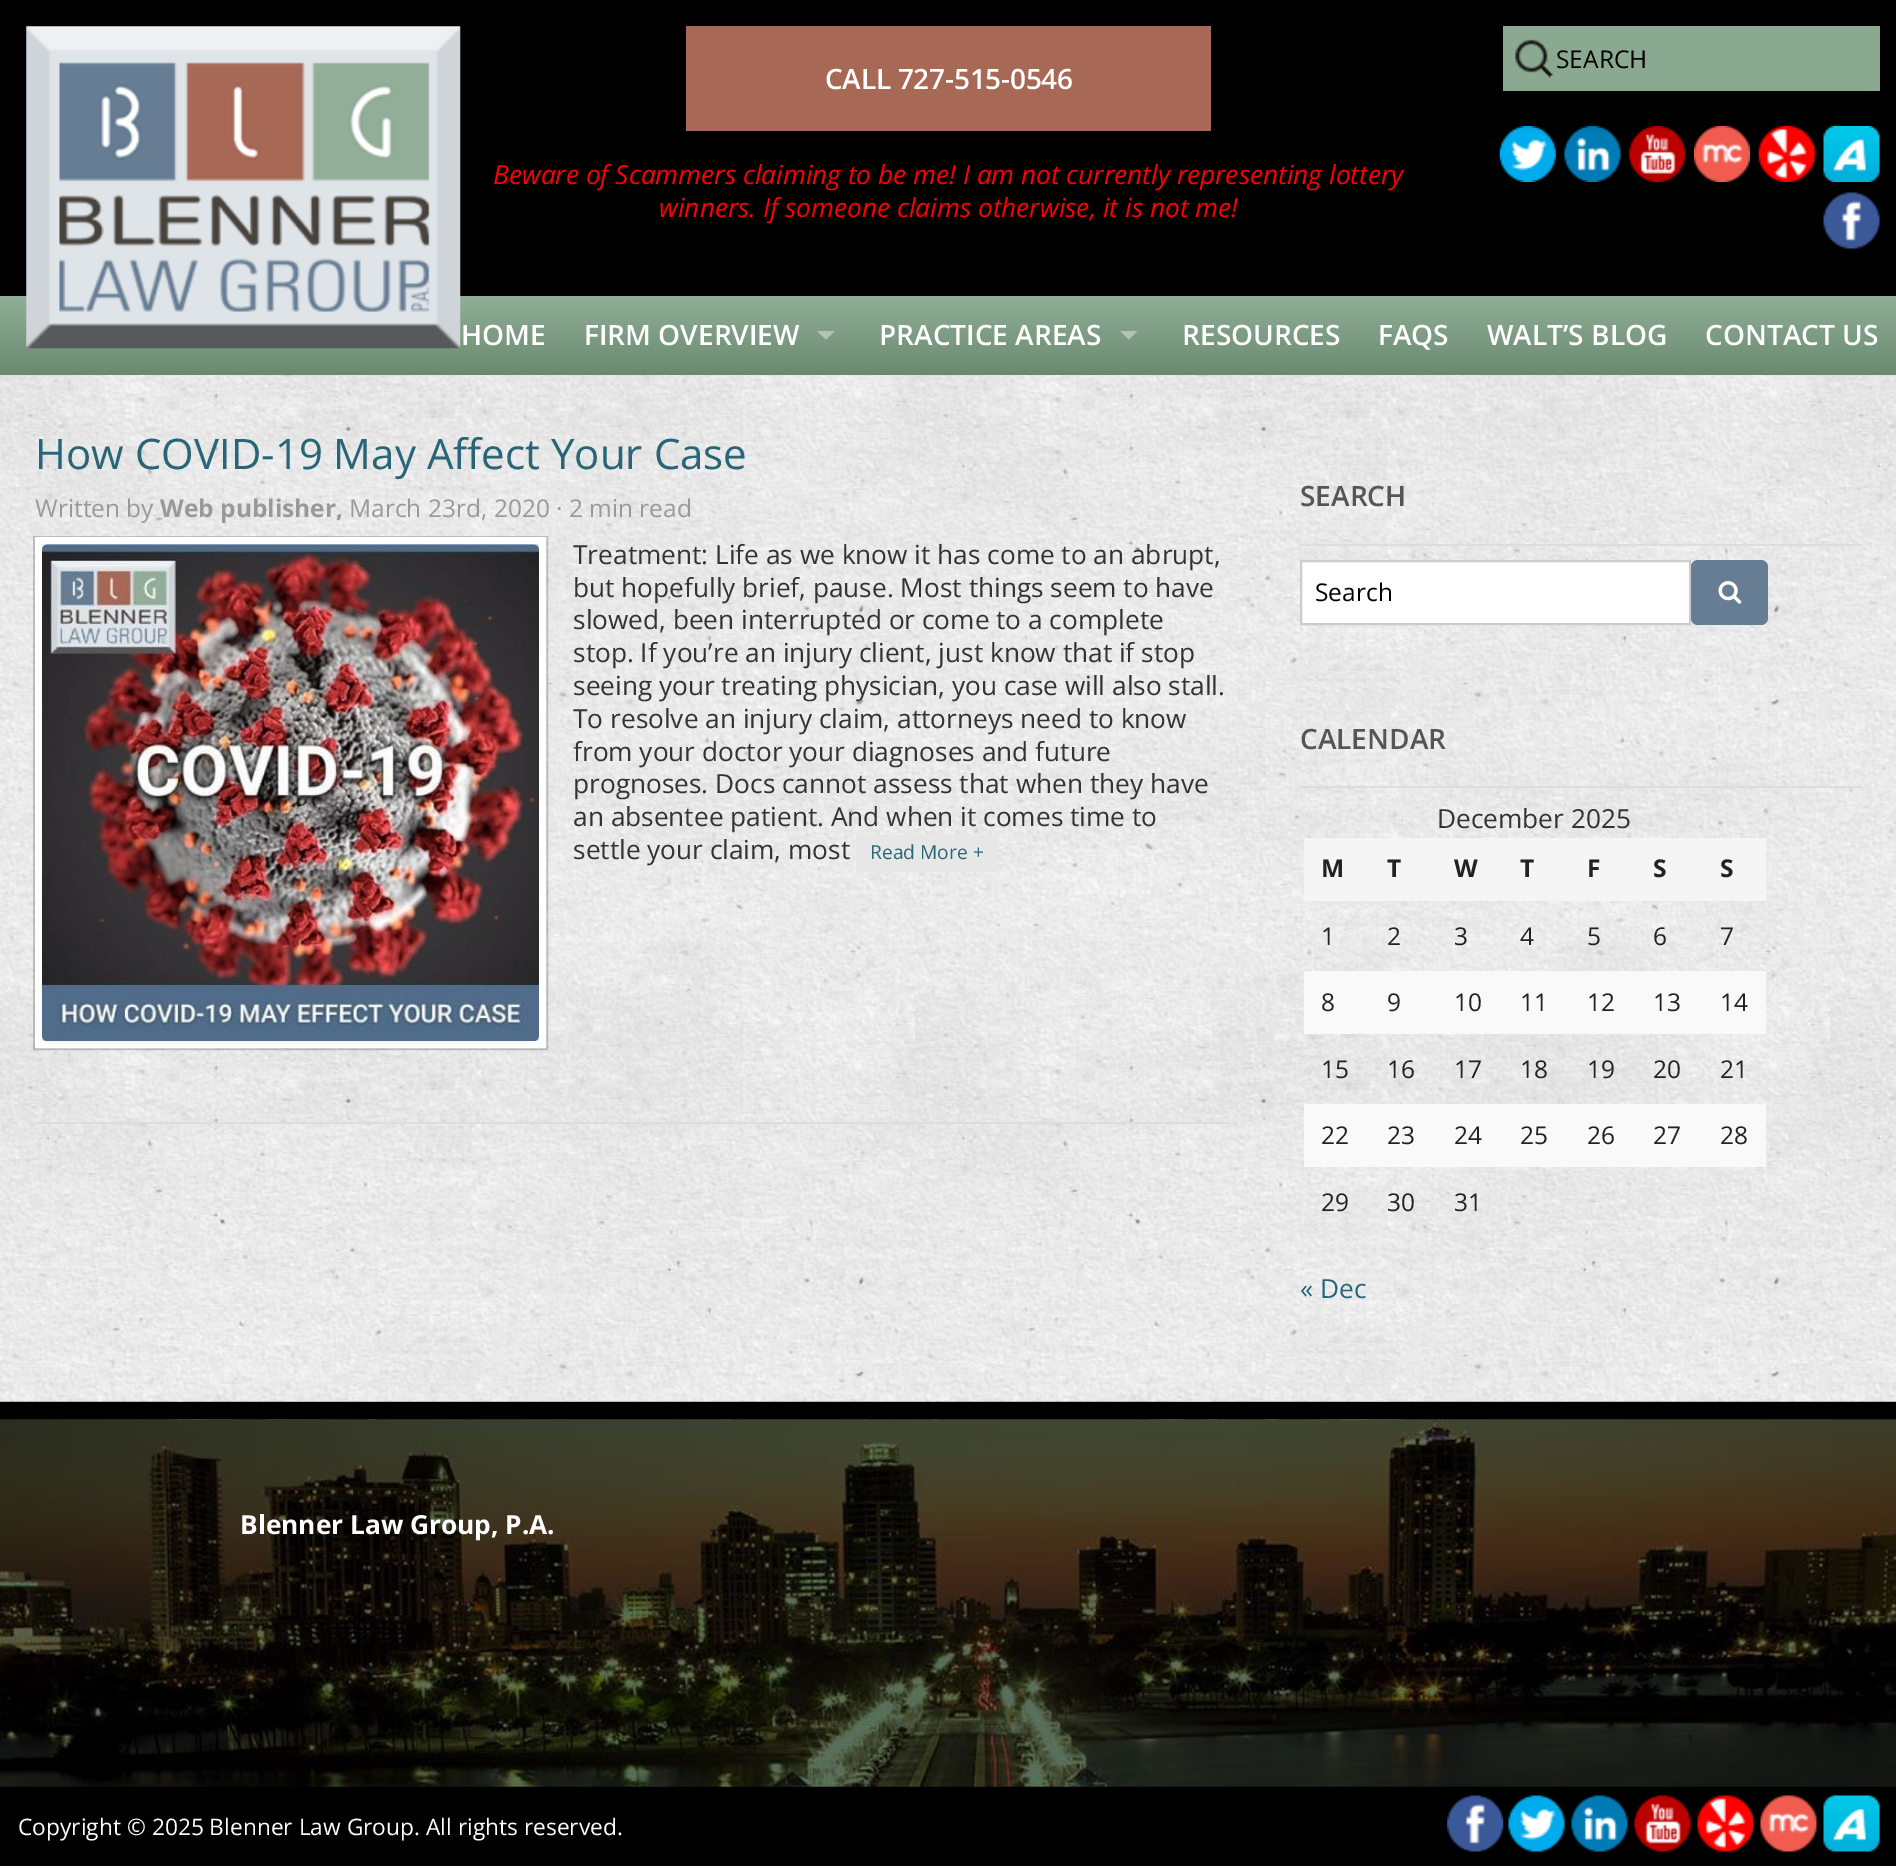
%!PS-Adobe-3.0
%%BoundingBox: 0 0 1896 1869
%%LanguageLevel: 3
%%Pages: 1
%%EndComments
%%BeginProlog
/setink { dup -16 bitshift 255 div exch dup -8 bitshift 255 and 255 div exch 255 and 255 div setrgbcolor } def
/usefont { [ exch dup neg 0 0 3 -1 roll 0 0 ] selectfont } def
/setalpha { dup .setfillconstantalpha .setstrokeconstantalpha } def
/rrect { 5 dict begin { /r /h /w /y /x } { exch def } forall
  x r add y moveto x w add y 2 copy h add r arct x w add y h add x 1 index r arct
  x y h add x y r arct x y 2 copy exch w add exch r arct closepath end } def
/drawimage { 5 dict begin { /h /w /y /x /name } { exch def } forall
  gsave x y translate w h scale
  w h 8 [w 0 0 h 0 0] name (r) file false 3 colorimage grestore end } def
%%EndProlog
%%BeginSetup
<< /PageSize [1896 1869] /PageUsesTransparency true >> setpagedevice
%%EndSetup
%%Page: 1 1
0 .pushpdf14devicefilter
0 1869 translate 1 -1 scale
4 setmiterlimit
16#FFFFFF setink
0 0 1896 1869 rectfill
(img1.raw) 0 375 1896 1412 drawimage
16#000000 setink
0 0 1896 296 rectfill
gsave 0 296 moveto 1896 296 lineto 1896 375 lineto 0 375 lineto closepath clip newpath
<< /ShadingType 2 /ColorSpace /DeviceRGB /Coords [949 296 949 375] /Extend [true true] /Function << /FunctionType 2 /Domain [0 1] /C0 [0.573 0.682 0.596] /C1 [0.412 0.541 0.439] /N 1 >> >> shfill grestore
(img2.raw) 26 26 435 323 drawimage
16#8BA891 setink
1503 26 377 65 rectfill
(img3.raw) 1515 39 38 39 drawimage
/OpenSans-Regular 24.5 usefont
16#000000 setink
1556 68 moveto (SEARCH) show
(img4.raw) 1499 126 57 56 drawimage
(img5.raw) 1564 126 57 56 drawimage
(img6.raw) 1629 126 57 56 drawimage
(img7.raw) 1694 126 56 56 drawimage
(img8.raw) 1758 126 57 56 drawimage
(img9.raw) 1823 126 57 56 drawimage
(img10.raw) 1823 192 57 57 drawimage
16#A76856 setink
686 26 525 105 rectfill
/OpenSans-SemiBold 28 usefont
16#FFFFFF setink
825 89 moveto -0.25 0 (CALL 727-515-0546) ashow
/OpenSans-Italic 26.25 usefont
16#FF0000 setink
493 184 moveto (Beware of Scammers claiming to be me! I am not currently representing lottery) show
659 217 moveto (winners. If someone claims otherwise, it is not me!) show
/OpenSans-SemiBold 28 usefont
16#FFFFFF setink
461 345 moveto (HOME) show
584 345 moveto (FIRM OVERVIEW) show
0.4 setalpha
817 331 moveto 835 331 lineto 826 339.5 lineto closepath fill
1 setalpha
879 345 moveto (PRACTICE AREAS) show
0.4 setalpha
1120 331 moveto 1137.5 331 lineto 1129 339.5 lineto closepath fill
1 setalpha
[
    [(RESOURCES) 1182 345]
    [(FAQS) 1378 345]
    [(WALT’S BLOG) 1487 345]
    [(CONTACT US) 1705 345]
] { aload pop moveto show } forall
16#DDDDDD setink
35 1122 1195 2 rectfill
/OpenSans-Regular 42 usefont
16#286677 setink
35 469 moveto (How COVID-19 May Affect Your Case) show
/OpenSans-Regular 24.5 usefont
16#999999 setink
35 517 moveto (Written by) show
/OpenSans-Bold 24.5 usefont
160 517 moveto (Web publisher,) show
/OpenSans-Regular 24.5 usefont
349 517 moveto (March 23rd, 2020 · 2 min read) show
0.2 setalpha
16#000000 setink
2 setlinewidth
34 537 513 512 rectstroke
1 setalpha
16#FFFFFF setink
7 setlinewidth
38.5 540.5 504 504 rectstroke
(img11.raw) 42 544 497 498 drawimage
/OpenSans-Regular 26.25 usefont
16#333333 setink
[
    [(Treatment: Life as we know it has come to an abrupt,) 573 564]
    [(but hopefully brief, pause. Most things seem to have) 573 597]
    [(slowed, been interrupted or come to a complete) 573 629]
    [(stop. If you’re an injury client, just know that if stop) 573 662]
    [(seeing your treating physician, you case will also stall.) 573 695]
    [(To resolve an injury claim, attorneys need to know) 573 728]
    [(from your doctor your diagnoses and future) 573 761]
    [(prognoses. Docs cannot assess that when they have) 573 793]
    [(an absentee patient. And when it comes time to) 573 826]
    [(settle your claim, most) 573 859]
] { aload pop moveto show } forall
16#E7E7E7 setink
856 835 142 37 rectfill
/OpenSans-Regular 19.25 usefont
16#286677 setink
870 859 moveto (Read More +) show
16#DDDDDD setink
1300 544 562 2 rectfill
/OpenSans-SemiBold 28 usefont
16#555555 setink
1300 506 moveto (SEARCH) show
16#FFFFFF setink
1301 561 moveto 1690 561 lineto 1690 624 lineto 1301 624 lineto closepath gsave fill grestore
16#CCCCCC setink
2 setlinewidth
stroke
/OpenSans-Regular 24.5 usefont
16#000000 setink
1315 601 moveto (Search) show
16#677D94 setink
1691 560 77 65 7 rrect fill
(img12.raw) 1718 581 24 23 drawimage
16#DDDDDD setink
1300 786 562 2 rectfill
/OpenSans-SemiBold 28 usefont
16#555555 setink
1300 749 moveto (CALENDAR) show
/OpenSans-Regular 26.25 usefont
16#333333 setink
1437 828 moveto (December 2025) show
16#F5F5F5 setink
1304 838 462 63 rectfill
/OpenSans-Bold 24.5 usefont
16#222222 setink
[
    [(M) 1321 877]
    [(T) 1387 877]
    [(W) 1454 877]
    [(T) 1520 877]
    [(F) 1587 877]
    [(S) 1653 877]
    [(S) 1720 877]
] { aload pop moveto show } forall
/OpenSans-Regular 24.5 usefont
[
    [(1) 1321 945]
    [(2) 1387 945]
    [(3) 1454 945]
    [(4) 1520 945]
    [(5) 1587 945]
    [(6) 1653 945]
    [(7) 1720 945]
] { aload pop moveto show } forall
16#F9F9F9 setink
1304 971 462 63 rectfill
16#222222 setink
[
    [(8) 1321 1011]
    [(9) 1387 1011]
    [(10) 1454 1011]
    [(11) 1520 1011]
    [(12) 1587 1011]
    [(13) 1653 1011]
    [(14) 1720 1011]
    [(15) 1321 1078]
    [(16) 1387 1078]
    [(17) 1454 1078]
    [(18) 1520 1078]
    [(19) 1587 1078]
    [(20) 1653 1078]
    [(21) 1720 1078]
] { aload pop moveto show } forall
16#F9F9F9 setink
1304 1104 462 63 rectfill
16#222222 setink
[
    [(22) 1321 1144]
    [(23) 1387 1144]
    [(24) 1454 1144]
    [(25) 1520 1144]
    [(26) 1587 1144]
    [(27) 1653 1144]
    [(28) 1720 1144]
    [(29) 1321 1211]
    [(30) 1387 1211]
    [(31) 1454 1211]
] { aload pop moveto show } forall
/OpenSans-Regular 26.25 usefont
16#286677 setink
1300 1298 moveto (« Dec) show
(img13.raw) 0 1401 1896 386 drawimage
16#000000 setink
0 1402 1896 17 rectfill
/OpenSans-Bold 26.25 usefont
16#FFFFFF setink
240 1534 moveto (Blenner Law Group, P.A.) show
16#000000 setink
0 1787 1896 79 rectfill
/OpenSans-Regular 22.75 usefont
16#FFFFFF setink
18 1835 moveto (Copyright © 2025 Blenner Law Group. All rights reserved.) show
(img14.raw) 1447 1795 57 57 drawimage
(img15.raw) 1508 1795 57 57 drawimage
(img16.raw) 1571 1795 57 57 drawimage
(img17.raw) 1634 1795 57 57 drawimage
(img18.raw) 1697 1795 57 57 drawimage
(img19.raw) 1760 1795 57 57 drawimage
(img20.raw) 1823 1795 57 57 drawimage
.poppdf14devicefilter showpage
%%EOF
